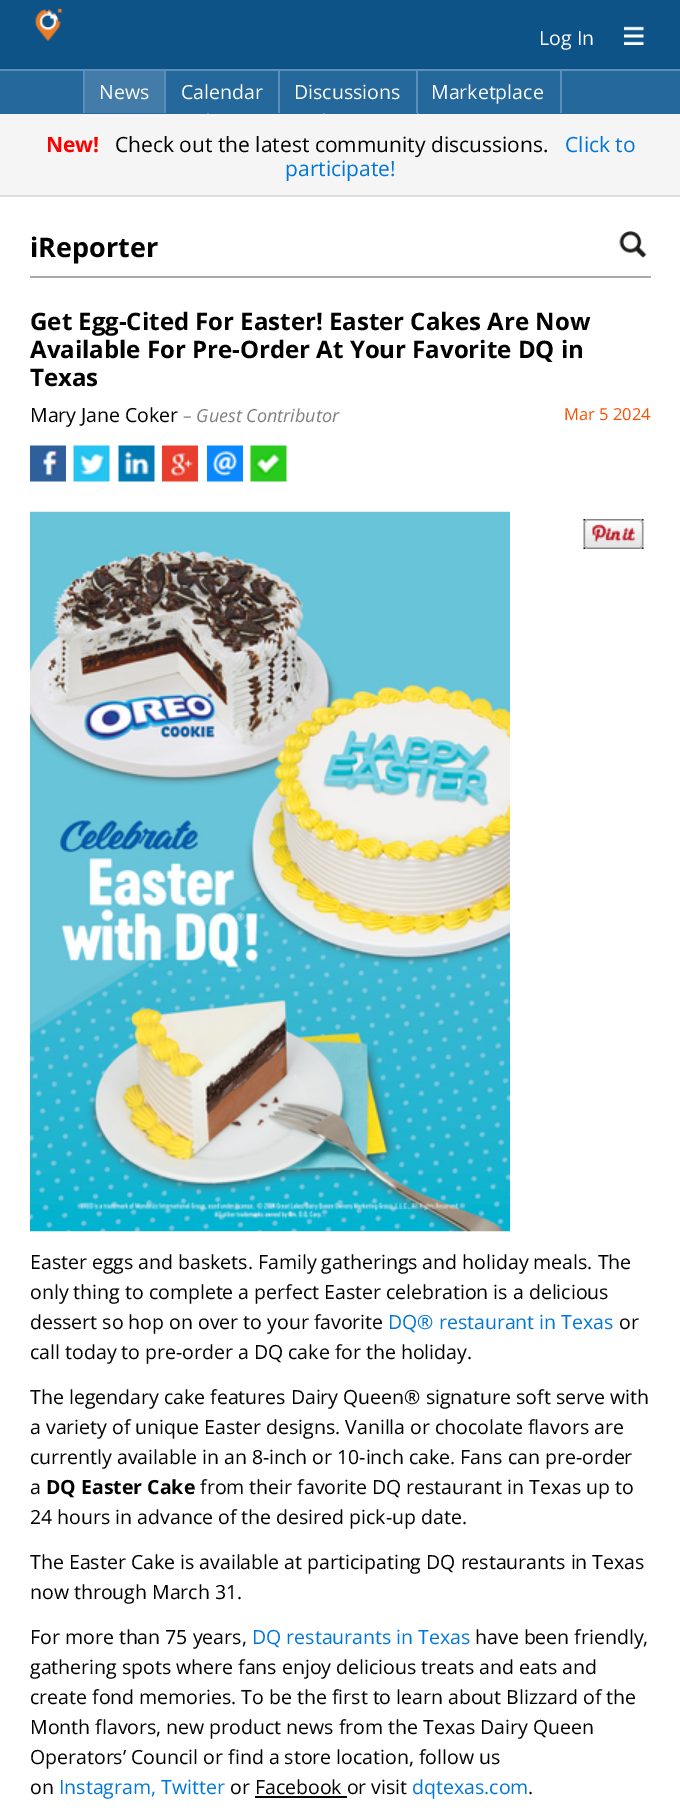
%!PS-Adobe-3.0
%%BoundingBox: 0 0 680 1820
%%LanguageLevel: 3
%%Pages: 1
%%EndComments
%%BeginProlog
/setink { dup -16 bitshift 255 div exch dup -8 bitshift 255 and 255 div exch 255 and 255 div setrgbcolor } def
/usefont { [ exch dup neg 0 0 3 -1 roll 0 0 ] selectfont } def
/drawimage { 5 dict begin { /h /w /y /x /name } { exch def } forall
  gsave x y translate w h scale
  w h 8 [w 0 0 h 0 0] name (r) file false 3 colorimage grestore end } def
%%EndProlog
%%BeginSetup
<< /PageSize [680 1820] >> setpagedevice
%%EndSetup
%%Page: 1 1
0 1820 translate 1 -1 scale
4 setmiterlimit
16#FFFFFF setink
0 0 680 1820 rectfill
16#0E5388 setink
0 0 680 69 rectfill
(img1.raw) 35 8 27 33 drawimage
/OpenSans-Regular 19.5 usefont
16#FFFFFF setink
539 45 moveto (Log In) show
(img2.raw) 624 26 20 19 drawimage
[
    [0 71 680 43 16#25699C]
    [0 69 680 2 16#5B8EBA]
    [85 71 79 42 16#437CA8]
    [164 71 2 42 16#5B8EBA]
    [83 71 2 42 16#5B8EBA]
] { aload pop setink rectfill } forall
16#FFFFFF setink
99 99 moveto (News) show
16#5B8EBA setink
278 71 2 42 rectfill
16#FFFFFF setink
181 99 moveto (Calendar) show
16#5B8EBA setink
416 71 2 42 rectfill
16#FFFFFF setink
294 99 moveto (Discussions) show
16#5B8EBA setink
560 71 2 42 rectfill
16#FFFFFF setink
431 99 moveto (Marketplace) show
[
    [207 113 2 1 16#5B8EBA]
    [323 113 2 1 16#5B8EBA]
    [417 113 2 1 16#5B8EBA]
    [0 114 680 81 16#F5F5F5]
    [0 195 680 2 16#DDDDDD]
] { aload pop setink rectfill } forall
/OpenSans-Bold 21 usefont
16#FF0000 setink
46 152 moveto (New!) show
/OpenSans-Regular 21 usefont
16#000000 setink
115 152 moveto (Check out the latest community discussions.) show
16#0176D9 setink
565 152 moveto (Click to) show
285 176 moveto (participate!) show
16#AAAAAA setink
30 276 621 2 rectfill
/OpenSans-Bold 27 usefont
16#000000 setink
30 257 moveto (iReporter) show
(img3.raw) 619 231 28 27 drawimage
/OpenSans-Bold 24 usefont
[
    [(Get Egg-Cited For Easter! Easter Cakes Are Now) 30 330]
    [(Available For Pre-Order At Your Favorite DQ in) 30 358]
    [(Texas) 30 386]
] { aload pop moveto show } forall
/OpenSans-Regular 19.5 usefont
30 422 moveto (Mary Jane Coker) show
/OpenSans-Italic 18 usefont
16#808080 setink
183 422 moveto (– Guest Contributor) show
/OpenSans-Regular 16.5 usefont
16#F85000 setink
564 420 moveto (Mar 5 2024) show
(img4.raw) 30 445 36 37 drawimage
(img5.raw) 73 445 37 37 drawimage
(img6.raw) 118 445 37 37 drawimage
(img7.raw) 162 445 36 37 drawimage
(img8.raw) 207 445 36 37 drawimage
(img9.raw) 250 445 37 37 drawimage
(img10.raw) 30 511 480 721 drawimage
(img11.raw) 583 519 61 30 drawimage
/OpenSans-Regular 19.5 usefont
16#000000 setink
[
    [(Easter eggs and baskets. Family gatherings and holiday meals. The) 30 1269]
    [(only thing to complete a perfect Easter celebration is a delicious) 30 1299]
    [(dessert so hop on over to your favorite) 30 1329]
] { aload pop moveto show } forall
16#0176D9 setink
388 1329 moveto (DQ® restaurant in Texas) show
16#000000 setink
[
    [(or) 619 1329]
    [(call today to pre-order a DQ cake for the holiday.) 30 1359]
    [(The legendary cake features Dairy Queen® signature soft serve with) 30 1404]
    [(a variety of unique Easter designs. Vanilla or chocolate flavors are) 30 1434]
    [(currently available in an 8-inch or 10-inch cake. Fans can pre-order) 30 1464]
    [(a) 30 1494]
] { aload pop moveto show } forall
/OpenSans-Bold 19.5 usefont
46 1494 moveto (DQ Easter Cake) show
/OpenSans-Regular 19.5 usefont
[
    [(from their favorite DQ restaurant in Texas up to) 200 1494]
    [(24 hours in advance of the desired pick-up date.) 30 1524]
    [(The Easter Cake is available at participating DQ restaurants in Texas) 30 1569]
    [(now through March 31.) 30 1599]
    [(For more than 75 years,) 30 1644]
] { aload pop moveto show } forall
16#0176D9 setink
252 1644 moveto (DQ restaurants in Texas) show
16#000000 setink
[
    [(have been friendly,) 475 1644]
    [(gathering spots where fans enjoy delicious treats and eats and) 30 1674]
    [(create fond memories. To be the first to learn about Blizzard of the) 30 1704]
    [(Month flavors, new product news from the Texas Dairy Queen) 30 1734]
    [(Operators’ Council or find a store location, follow us) 30 1764]
    [(on) 30 1794]
] { aload pop moveto show } forall
16#0176D9 setink
59 1794 moveto (Instagram, Twitter) show
16#000000 setink
230 1794 moveto (or Facebook or visit) show
16#0176D9 setink
412 1794 moveto (dqtexas.com) show
16#000000 setink
528 1794 moveto (.) show
255 1796 92 2 rectfill
showpage
%%EOF
